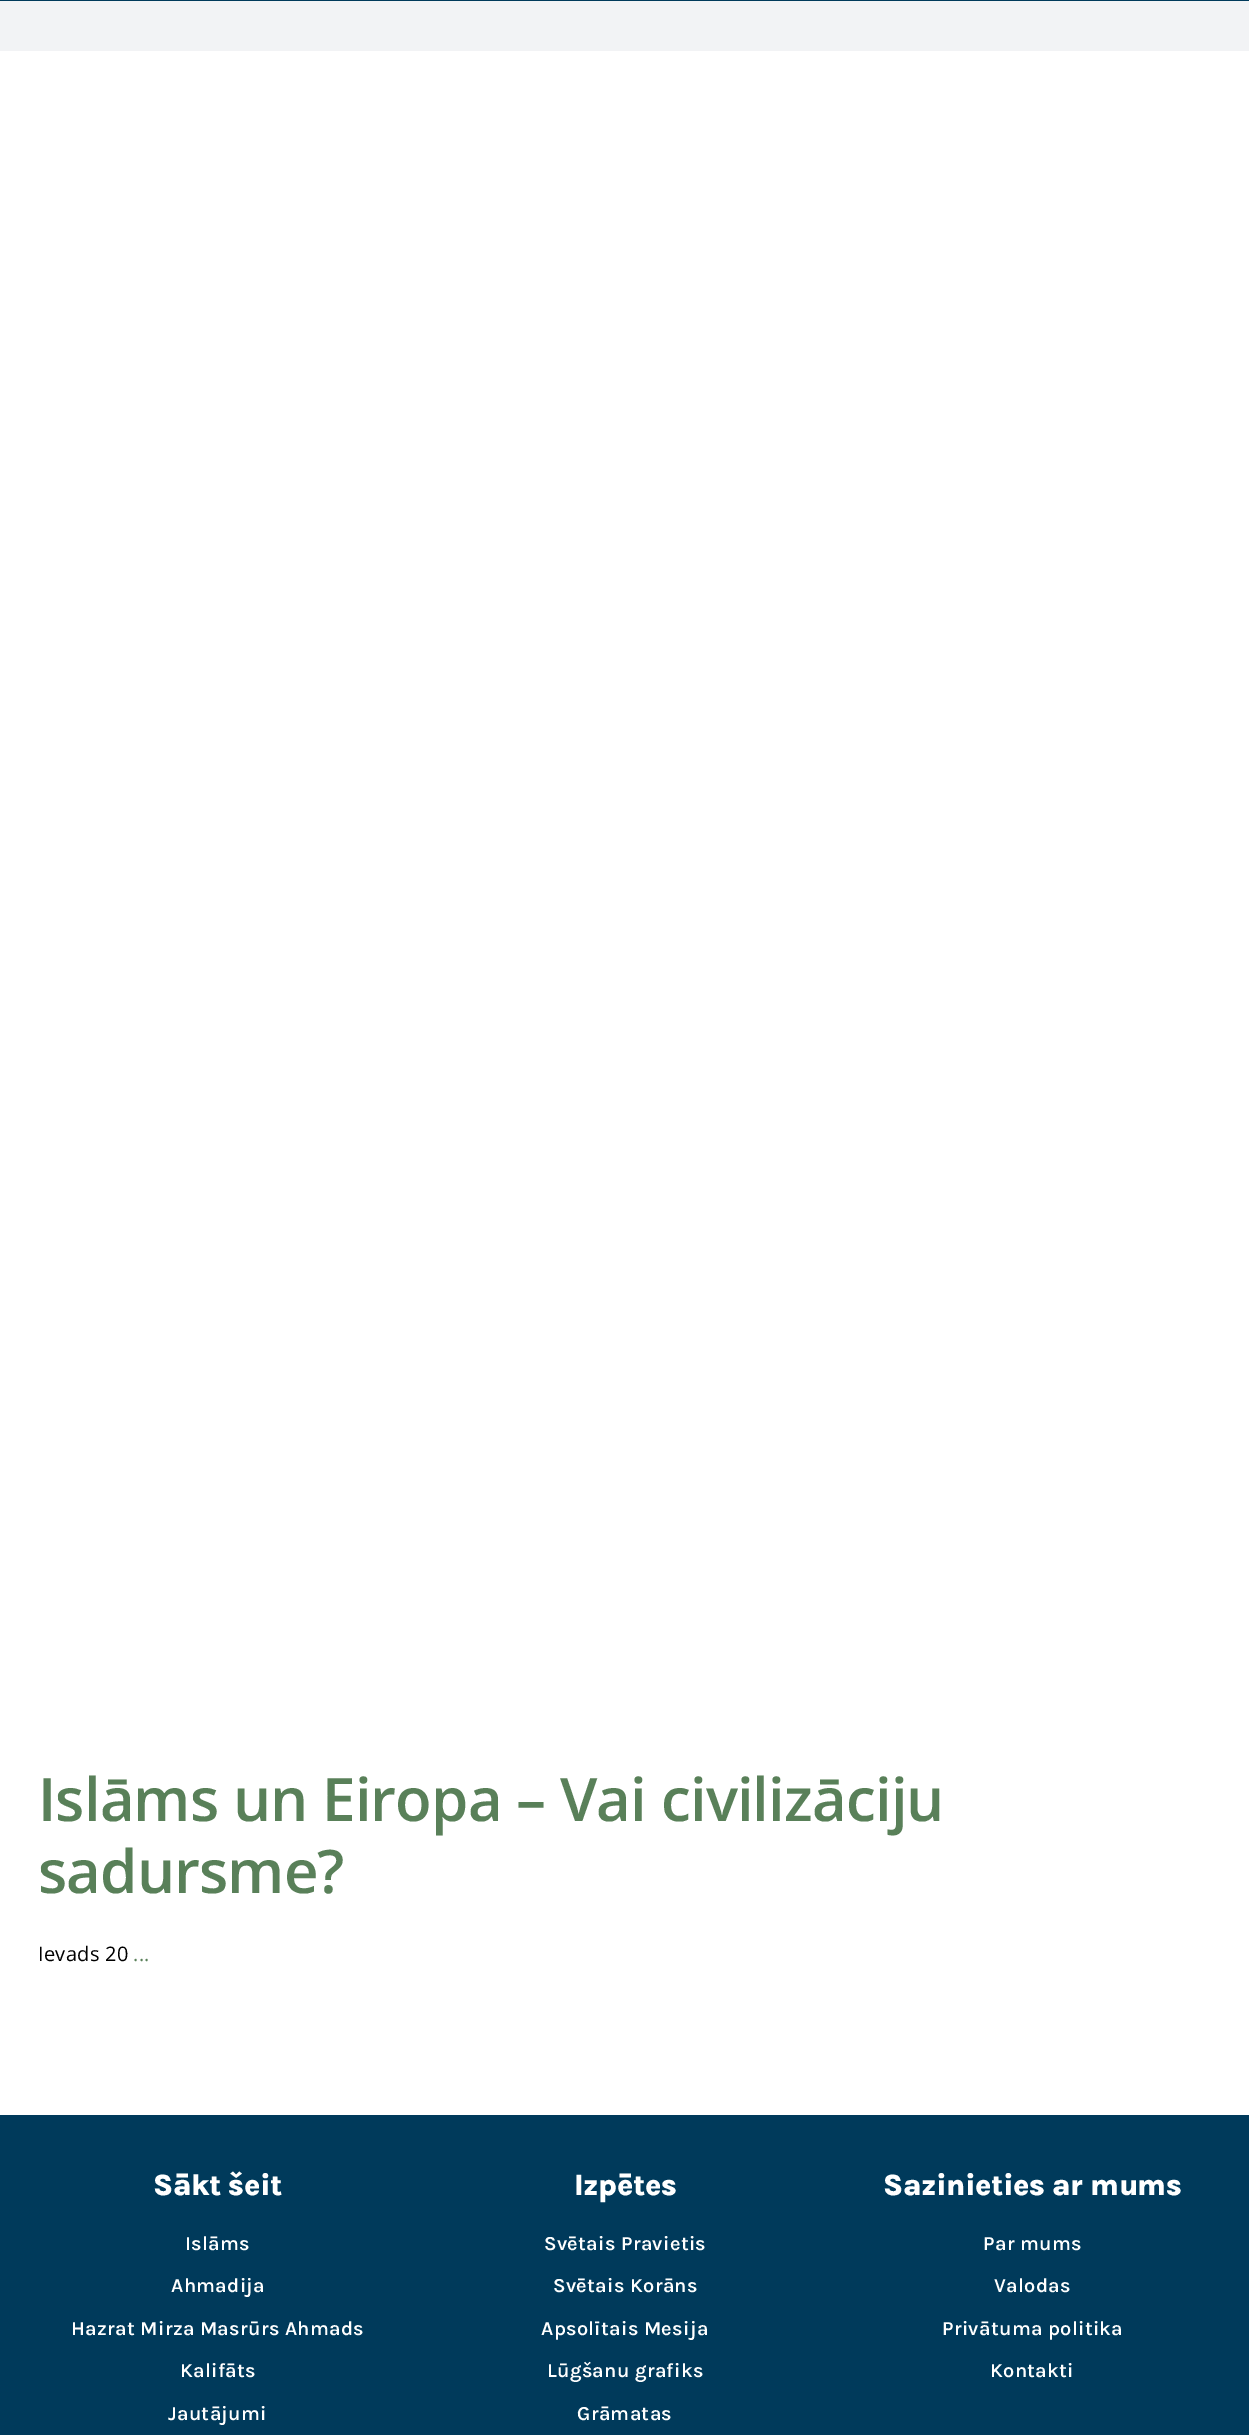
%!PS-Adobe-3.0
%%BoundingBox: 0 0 1249 2435
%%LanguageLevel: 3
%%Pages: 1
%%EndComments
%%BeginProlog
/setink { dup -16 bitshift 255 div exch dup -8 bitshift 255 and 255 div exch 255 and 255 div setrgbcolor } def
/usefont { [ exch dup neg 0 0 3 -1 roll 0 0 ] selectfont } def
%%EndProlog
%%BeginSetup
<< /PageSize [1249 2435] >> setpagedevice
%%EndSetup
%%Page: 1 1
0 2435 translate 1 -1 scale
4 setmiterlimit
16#FFFFFF setink
0 0 1249 2435 rectfill
16#003A5B setink
0 0 1249 1 rectfill
16#F2F3F5 setink
0 1 1249 50 rectfill
/OpenSans-SemiBold 60 usefont
16#598059 setink
38 1821 moveto -0.9 0 (Islāms un Eiropa – Vai civilizāciju) ashow
38 1893 moveto -0.9 0 (sadursme?) ashow
/OpenSans-Regular 20 usefont
16#000000 setink
38 1961 moveto 0.3 0 (Ievads 20) ashow
16#598059 setink
133 1961 moveto 0.3 0 (...) ashow
16#003A5B setink
0 2115 1249 320 rectfill
/Karla-ExtraBold 30 usefont
16#FFFFFF setink
153 2195 moveto -0.5 0 (Sākt šeit) ashow
/Karla-SemiBold 20 usefont
185 2250 moveto 0.3 0 (Islāms) ashow
171 2292 moveto 0.3 0 (Ahmadija) ashow
71 2335 moveto 0.3 0 (Hazrat Mirza Masrūrs Ahmads) ashow
180 2377 moveto 0.3 0 (Kalifāts) ashow
168 2420 moveto 0.3 0 (Jautājumi) ashow
/Karla-ExtraBold 30 usefont
574 2195 moveto -0.5 0 (Izpētes) ashow
/Karla-SemiBold 20 usefont
544 2250 moveto 0.3 0 (Svētais Pravietis) ashow
553 2292 moveto 0.3 0 (Svētais Korāns) ashow
541 2335 moveto 0.3 0 (Apsolītais Mesija) ashow
547 2377 moveto 0.3 0 (Lūgšanu grafiks) ashow
577 2420 moveto 0.3 0 (Grāmatas) ashow
/Karla-ExtraBold 30 usefont
883 2195 moveto -0.5 0 (Sazinieties ar mums) ashow
/Karla-SemiBold 20 usefont
983 2250 moveto 0.3 0 (Par mums) ashow
994 2292 moveto 0.3 0 (Valodas) ashow
942 2335 moveto 0.3 0 (Privātuma politika) ashow
990 2377 moveto 0.3 0 (Kontakti) ashow
showpage
%%EOF
